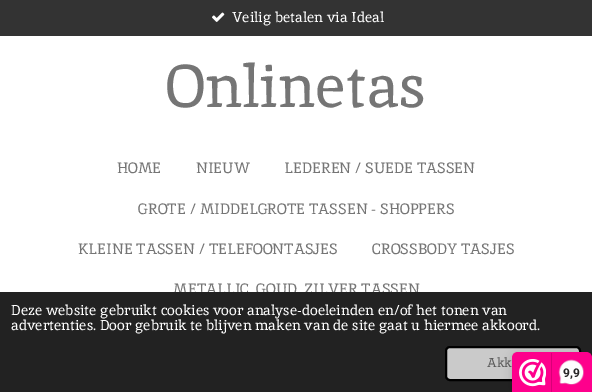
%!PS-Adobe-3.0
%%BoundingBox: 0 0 592 392
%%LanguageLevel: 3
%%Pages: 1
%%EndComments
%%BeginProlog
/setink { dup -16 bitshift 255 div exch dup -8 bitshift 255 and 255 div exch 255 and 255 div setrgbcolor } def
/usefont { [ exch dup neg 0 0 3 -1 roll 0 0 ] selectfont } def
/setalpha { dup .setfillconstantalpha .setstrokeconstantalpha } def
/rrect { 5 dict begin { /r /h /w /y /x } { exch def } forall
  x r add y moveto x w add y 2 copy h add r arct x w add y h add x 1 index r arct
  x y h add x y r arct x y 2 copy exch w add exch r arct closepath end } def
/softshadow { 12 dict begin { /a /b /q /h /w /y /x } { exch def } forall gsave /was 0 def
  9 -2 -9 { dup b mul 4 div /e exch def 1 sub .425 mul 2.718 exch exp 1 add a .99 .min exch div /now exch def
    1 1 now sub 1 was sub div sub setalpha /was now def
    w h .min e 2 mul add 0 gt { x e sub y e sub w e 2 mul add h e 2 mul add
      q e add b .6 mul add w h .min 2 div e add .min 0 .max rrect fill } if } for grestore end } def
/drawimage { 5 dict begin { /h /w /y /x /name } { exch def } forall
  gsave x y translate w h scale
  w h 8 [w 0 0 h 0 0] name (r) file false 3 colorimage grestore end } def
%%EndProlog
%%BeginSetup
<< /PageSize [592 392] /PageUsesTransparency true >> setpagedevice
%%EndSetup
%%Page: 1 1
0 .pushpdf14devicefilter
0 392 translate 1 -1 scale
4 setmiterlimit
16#FFFFFF setink
0 0 592 392 rectfill
16#333333 setink
0 0 592 36 rectfill
(img1.raw) 212 12 13 10 drawimage
/Inika-Regular 14.3 usefont
16#FFFFFF setink
232 22 moveto (Veilig betalen via Ideal) show
/Inika-Regular 60 usefont
16#757575 setink
166 107 moveto (Onlinetas) show
/Inika-Regular 15 usefont
[
    [(HOME) 117 173]
    [(NIEUW) 196 173]
    [(LEDEREN / SUEDE TASSEN) 284 173]
    [(GROTE / MIDDELGROTE TASSEN - SHOPPERS) 138 214]
    [(KLEINE TASSEN / TELEFOONTASJES) 78 254]
    [(CROSSBODY TASJES) 372 254]
    [(METALLIC, GOUD, ZILVER TASSEN) 173 294]
] { aload pop moveto show } forall
16#222222 setink
0 292 592 100 rectfill
/Inika-Regular 14.3 usefont
16#FFFFFF setink
11 315 moveto (Deze website gebruikt cookies voor analyse-doeleinden en/of het tonen van) show
11 330 moveto (advertenties. Door gebruik te blijven maken van de site gaat u hiermee akkoord.) show
16#CACACA setink
446 347 134 33 4 rrect gsave fill grestore
16#000000 setink
2 setlinewidth
stroke
/Inika-Regular 13 usefont
16#5B5B5B setink
487 367 moveto (Akk) show
16#000000 setink
512 354 80 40 6 5 0.15 softshadow
16#FE008C setink
518 352 moveto 586 352 lineto 589.5 352 592 354.5 592 358 curveto 592 392 lineto 512 392 lineto 512 358 lineto 512 354.5 514.5 352 518 352 curveto closepath fill
(img2.raw) 519 359 27 28 drawimage
16#D80077 setink
551 353 1 39 rectfill
(img3.raw) 558 359 26 26 drawimage
/Roboto-Bold 12 usefont
16#272626 setink
563 377 moveto (9,9) show
.poppdf14devicefilter showpage
%%EOF
